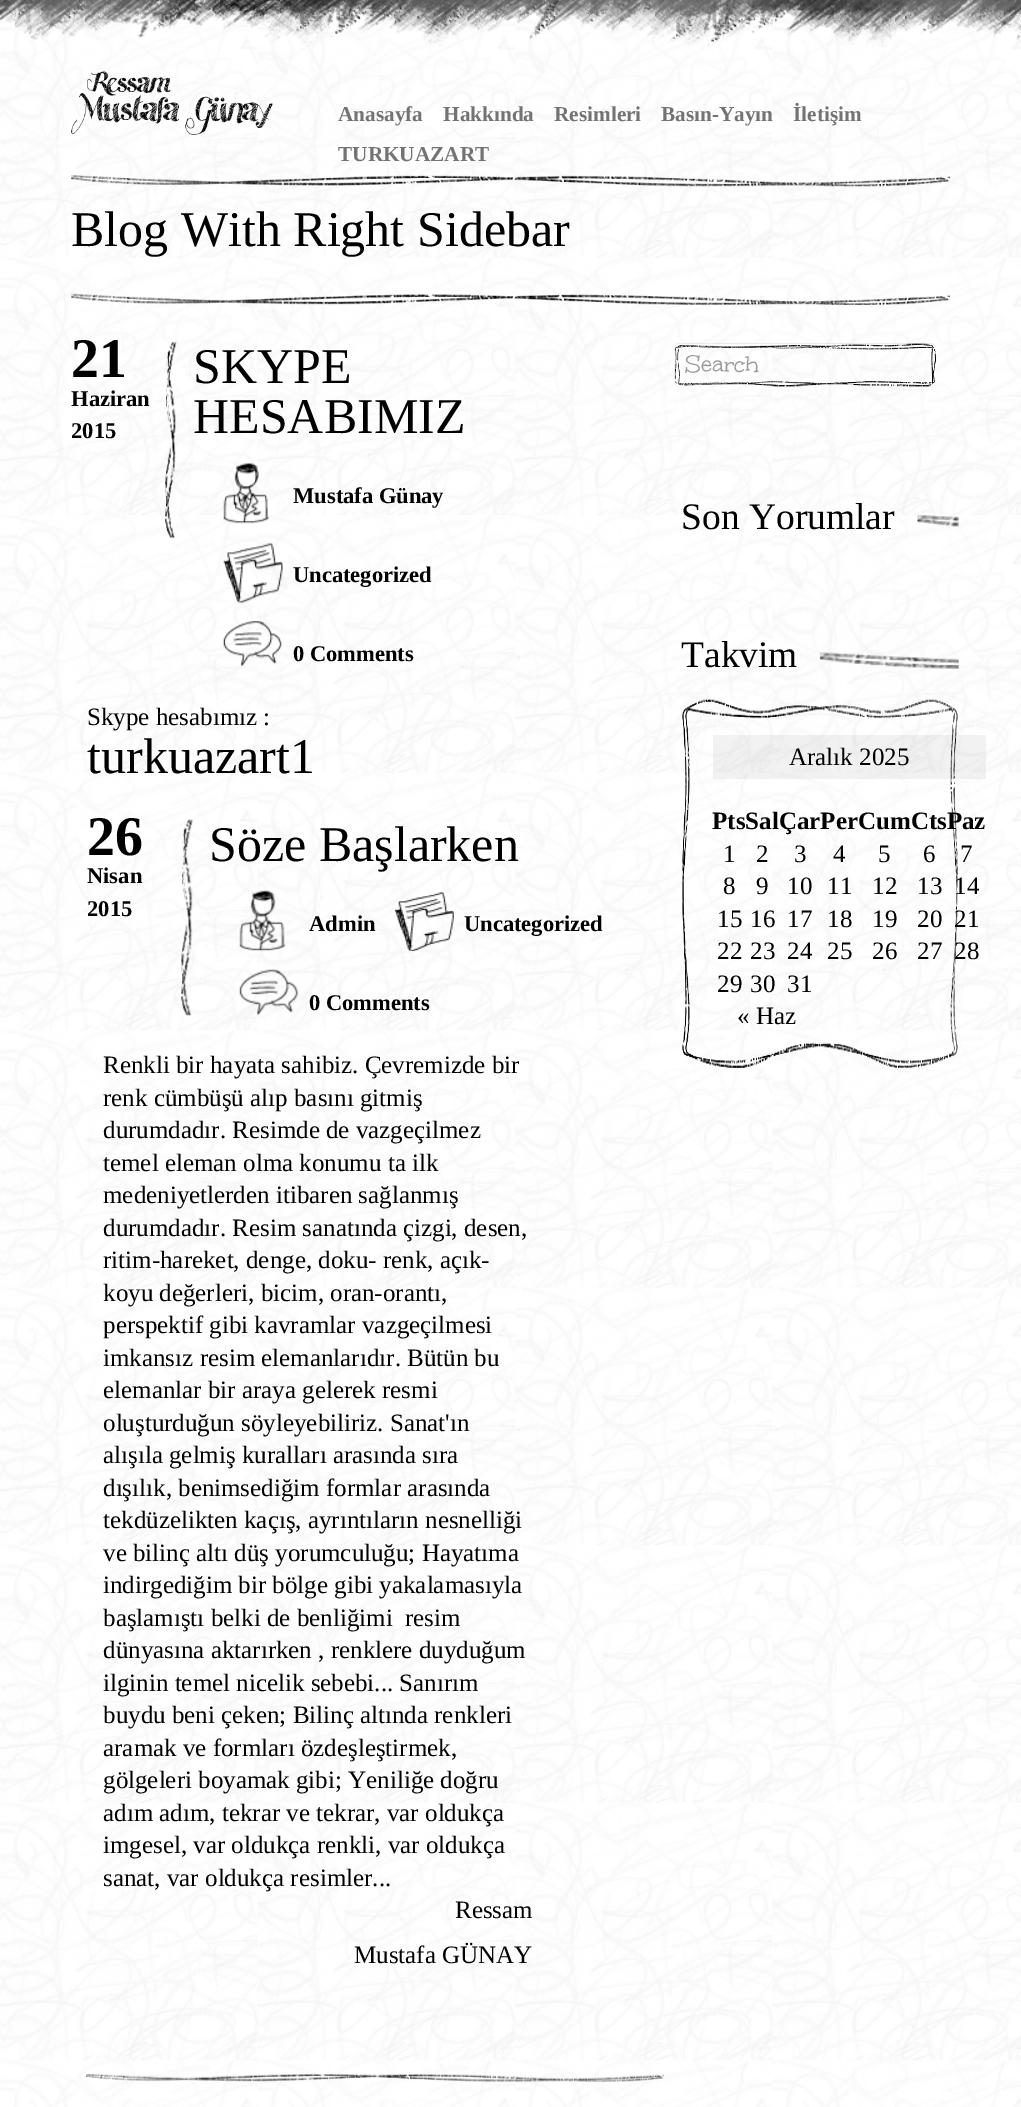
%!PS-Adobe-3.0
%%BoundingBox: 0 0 1021 2107
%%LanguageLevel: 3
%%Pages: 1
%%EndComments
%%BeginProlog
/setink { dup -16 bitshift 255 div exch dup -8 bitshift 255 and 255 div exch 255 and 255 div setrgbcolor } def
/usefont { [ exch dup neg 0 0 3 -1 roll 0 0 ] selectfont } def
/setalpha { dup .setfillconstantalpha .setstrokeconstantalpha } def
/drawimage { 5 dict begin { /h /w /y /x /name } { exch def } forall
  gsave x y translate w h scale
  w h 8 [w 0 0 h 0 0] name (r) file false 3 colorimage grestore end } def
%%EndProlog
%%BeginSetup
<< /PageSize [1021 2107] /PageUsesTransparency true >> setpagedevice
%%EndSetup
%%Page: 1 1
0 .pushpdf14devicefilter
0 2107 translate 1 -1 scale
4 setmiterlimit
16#FFFFFF setink
0 0 1021 2107 rectfill
(img1.raw) 0 0 1021 2107 drawimage
(img2.raw) 0 0 1021 47 drawimage
(img3.raw) 71 71 202 64 drawimage
/LiberationSerif-Bold 21.25 usefont
16#737373 setink
[
    [(Anasayfa) 338 121]
    [(Hakkında) 443 121]
    [(Resimleri) 554 121]
    [(Basın-Yayın) 661 121]
    [(İletişim) 793 121]
    [(TURKUAZART) 338 161]
] { aload pop moveto show } forall
(img4.raw) 71 175 879 12 drawimage
/LiberationSerif-Regular 50 usefont
16#000000 setink
71 246 moveto (Blog With Right Sidebar) show
(img5.raw) 71 293 879 12 drawimage
/LiberationSerif-Bold 56 usefont
71 377 moveto (21) show
/LiberationSerif-Bold 22.5 usefont
71 406 moveto (Haziran) show
71 438 moveto (2015) show
(img6.raw) 165 342 12 197 drawimage
/LiberationSerif-Regular 50 usefont
193 383 moveto (SKYPE) show
193 433 moveto (HESABIMIZ) show
(img7.raw) 223 463 46 61 drawimage
/LiberationSerif-Bold 22.5 usefont
293 503 moveto (Mustafa Günay) show
(img8.raw) 223 542 60 62 drawimage
293 582 moveto (Uncategorized) show
(img9.raw) 223 621 59 46 drawimage
293 661 moveto (0 Comments) show
/LiberationSerif-Regular 25 usefont
87 725 moveto (Skype hesabımız :) show
/LiberationSerif-Regular 50 usefont
87 773 moveto (turkuazart1) show
/LiberationSerif-Bold 56 usefont
87 855 moveto (26) show
/LiberationSerif-Bold 22.5 usefont
87 883 moveto (Nisan) show
87 916 moveto (2015) show
(img10.raw) 181 819 13 197 drawimage
/LiberationSerif-Regular 50 usefont
209 861 moveto (Söze Başlarken) show
(img11.raw) 239 890 47 61 drawimage
/LiberationSerif-Bold 22.5 usefont
309 931 moveto (Admin) show
(img12.raw) 395 891 59 60 drawimage
464 931 moveto (Uncategorized) show
(img13.raw) 239 969 60 47 drawimage
309 1010 moveto (0 Comments) show
/LiberationSerif-Regular 25 usefont
[
    [(Renkli bir hayata sahibiz. Çevremizde bir) 103 1073]
    [(renk cümbüşü alıp basını gitmiş) 103 1106]
    [(durumdadır. Resimde de vazgeçilmez) 103 1138]
    [(temel eleman olma konumu ta ilk) 103 1171]
    [(medeniyetlerden itibaren sağlanmış) 103 1203]
    [(durumdadır. Resim sanatında çizgi, desen,) 103 1236]
    [(ritim-hareket, denge, doku- renk, açık-) 103 1268]
    [(koyu değerleri, bicim, oran-orantı,) 103 1301]
    [(perspektif gibi kavramlar vazgeçilmesi) 103 1333]
    [(imkansız resim elemanlarıdır. Bütün bu) 103 1366]
    [(elemanlar bir araya gelerek resmi) 103 1398]
    [(oluşturduğun söyleyebiliriz. Sanat'ın) 103 1431]
    [(alışıla gelmiş kuralları arasında sıra) 103 1463]
    [(dışılık, benimsediğim formlar arasında) 103 1496]
    [(tekdüzelikten kaçış, ayrıntıların nesnelliği) 103 1528]
    [(ve bilinç altı düş yorumculuğu; Hayatıma) 103 1561]
    [(indirgediğim bir bölge gibi yakalamasıyla) 103 1593]
    [(başlamıştı belki de benliğimi  resim) 103 1626]
    [(dünyasına aktarırken , renklere duyduğum) 103 1658]
    [(ilginin temel nicelik sebebi... Sanırım) 103 1691]
    [(buydu beni çeken; Bilinç altında renkleri) 103 1723]
    [(aramak ve formları özdeşleştirmek,) 103 1756]
    [(gölgeleri boyamak gibi; Yeniliğe doğru) 103 1788]
    [(adım adım, tekrar ve tekrar, var oldukça) 103 1821]
    [(imgesel, var oldukça renkli, var oldukça) 103 1853]
    [(sanat, var oldukça resimler...) 103 1886]
    [(Ressam) 455 1918]
    [(Mustafa GÜNAY) 354 1963]
] { aload pop moveto show } forall
(img14.raw) 86 2074 578 8 drawimage
(img15.raw) 674 343 262 44 drawimage
0.07 setalpha
679 344 moveto 931 344 lineto 934 344 936 346 936 349 curveto 936 346 934 343 931 343 curveto 679 343 lineto 676 343 674 346 674 349 curveto 674 346 676 344 679 344 curveto closepath fill
/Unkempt-Regular 25 usefont
1 setalpha
16#999999 setink
685 373 moveto (Search) show
/LiberationSerif-Regular 37.5 usefont
16#000000 setink
681 529 moveto (Son Yorumlar) show
(img16.raw) 917 514 42 13 drawimage
681 667 moveto (Takvim) show
(img17.raw) 819 652 140 17 drawimage
(img18.raw) 682 699 276 369 drawimage
0.05 setalpha
713 735 273 44 rectfill
/LiberationSerif-Regular 25 usefont
1 setalpha
789 765 moveto (Aralık 2025) show
/LiberationSerif-Bold 25 usefont
712 829 moveto (PtsSalÇarPerCumCtsPaz) show
/LiberationSerif-Regular 25 usefont
[
    [(1) 723 862]
    [(2) 756 862]
    [(3) 794 862]
    [(4) 833 862]
    [(5) 878 862]
    [(6) 923 862]
    [(7) 960 862]
    [(8) 723 894]
    [(9) 756 894]
    [(10) 787 894]
    [(11) 827 894]
    [(12) 872 894]
    [(13) 917 894]
    [(14) 954 894]
    [(15) 717 927]
    [(16) 750 927]
    [(17) 787 927]
    [(18) 827 927]
    [(19) 872 927]
    [(20) 917 927]
    [(21) 954 927]
    [(22) 717 959]
    [(23) 750 959]
    [(24) 787 959]
    [(25) 827 959]
    [(26) 872 959]
    [(27) 917 959]
    [(28) 954 959]
    [(29) 717 992]
    [(30) 750 992]
    [(31) 787 992]
    [(« Haz) 737 1024]
] { aload pop moveto show } forall
.poppdf14devicefilter showpage
%%EOF
